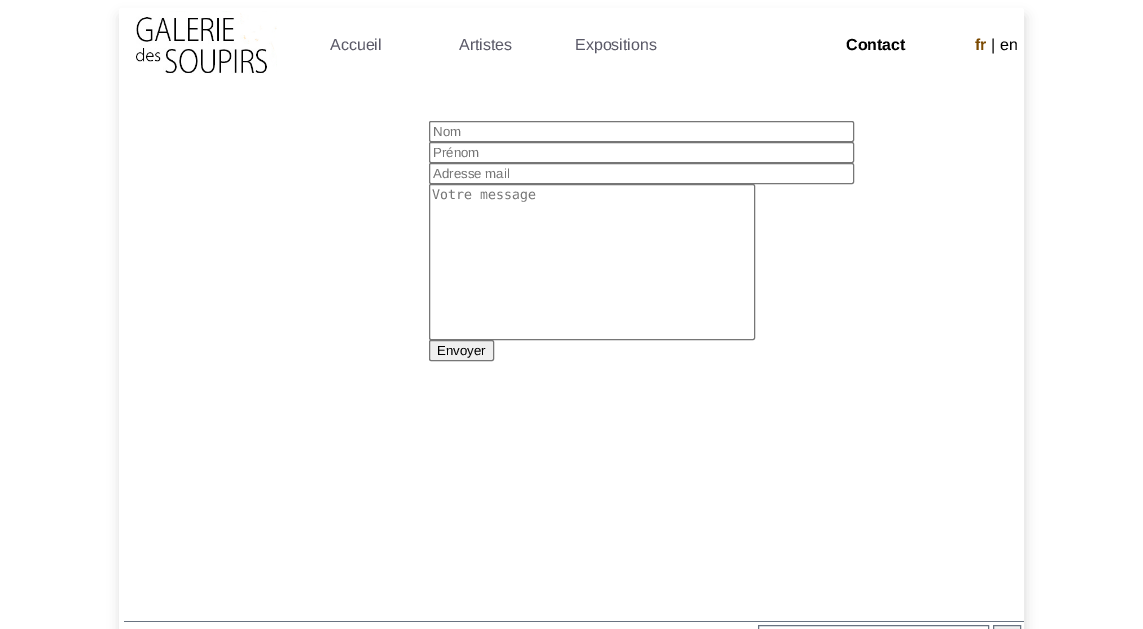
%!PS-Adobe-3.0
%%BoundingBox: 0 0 1143 629
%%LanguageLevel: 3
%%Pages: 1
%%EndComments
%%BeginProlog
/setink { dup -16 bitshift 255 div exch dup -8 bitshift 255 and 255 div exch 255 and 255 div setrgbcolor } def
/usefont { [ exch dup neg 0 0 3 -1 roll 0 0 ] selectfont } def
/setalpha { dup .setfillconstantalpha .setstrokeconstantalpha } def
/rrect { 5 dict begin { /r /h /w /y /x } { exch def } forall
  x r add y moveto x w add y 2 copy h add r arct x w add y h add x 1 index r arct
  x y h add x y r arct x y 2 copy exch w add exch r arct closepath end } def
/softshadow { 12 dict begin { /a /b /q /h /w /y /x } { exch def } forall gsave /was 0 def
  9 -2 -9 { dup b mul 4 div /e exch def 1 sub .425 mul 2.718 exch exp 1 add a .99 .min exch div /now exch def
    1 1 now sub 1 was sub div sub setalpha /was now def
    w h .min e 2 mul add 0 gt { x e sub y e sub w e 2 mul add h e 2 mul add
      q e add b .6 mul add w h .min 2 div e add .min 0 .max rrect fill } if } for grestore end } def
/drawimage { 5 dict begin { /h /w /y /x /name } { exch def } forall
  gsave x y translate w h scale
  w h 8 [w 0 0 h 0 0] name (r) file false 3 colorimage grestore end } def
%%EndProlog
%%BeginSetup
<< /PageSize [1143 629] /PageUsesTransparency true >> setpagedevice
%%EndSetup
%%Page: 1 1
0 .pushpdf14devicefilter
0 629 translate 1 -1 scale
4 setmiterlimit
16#FFFFFF setink
0 0 1143 629 rectfill
gsave
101 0 moveto 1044 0 lineto 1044 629 lineto 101 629 lineto closepath 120 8 moveto 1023 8 lineto 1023.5 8 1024 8.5 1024 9 curveto 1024 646 lineto 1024 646.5 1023.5 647 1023 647 curveto 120 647 lineto 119.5 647 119 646.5 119 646 curveto 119 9 lineto 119 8.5 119.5 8 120 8 curveto closepath eoclip newpath
16#D7D6D6 setink
120 16 905 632 1 6 1 softshadow
grestore
(img1.raw) 136 11 141 63 drawimage
/LiberationSans-Regular 16 usefont
16#5A5967 setink
[
    [(Accueil) 330 50]
    [(Artistes) 459 50]
    [(Expositions) 575 50]
] { aload pop moveto show } forall
/LiberationSans-Bold 16 usefont
16#000000 setink
846 50 moveto (Contact) show
16#7B4A02 setink
975 50 moveto (fr) show
/LiberationSans-Regular 16 usefont
16#000000 setink
991 50 moveto (| en) show
16#767676 setink
429.5 121.5 424 20 1.5 rrect stroke
/LiberationSans-Regular 13.25 usefont
16#757575 setink
433 136 moveto (Nom) show
16#767676 setink
429.5 142.5 424 20 1.5 rrect stroke
16#757575 setink
433 157 moveto (Prénom) show
16#767676 setink
429.5 163.5 424 20 1.5 rrect stroke
16#757575 setink
433 178 moveto (Adresse mail) show
16#767676 setink
429.5 184.5 325 155 1.5 rrect stroke
/DejaVuSansMono-Regular 13.25 usefont
16#757575 setink
432 199 moveto (Votre message) show
16#EFEFEF setink
429.5 340.5 64 20 1.5 rrect gsave fill grestore
16#767676 setink
stroke
/LiberationSans-Regular 13.25 usefont
16#000000 setink
437 355 moveto (Envoyer) show
16#697381 setink
124 621 900 1 rectfill
758.5 625.5 230 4 rectstroke
gsave 993 626 moveto 1021 626 lineto 1021 629 lineto 993 629 lineto closepath clip newpath
<< /ShadingType 2 /ColorSpace /DeviceRGB /Coords [1007 626 1007 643] /Extend [true true] /Function << /FunctionType 2 /Domain [0 1] /C0 [0.965 0.965 0.965] /C1 [0.729 0.749 0.773] /N 1 >> >> shfill grestore
993.5 625.5 27 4 rectstroke
.poppdf14devicefilter showpage
%%EOF
